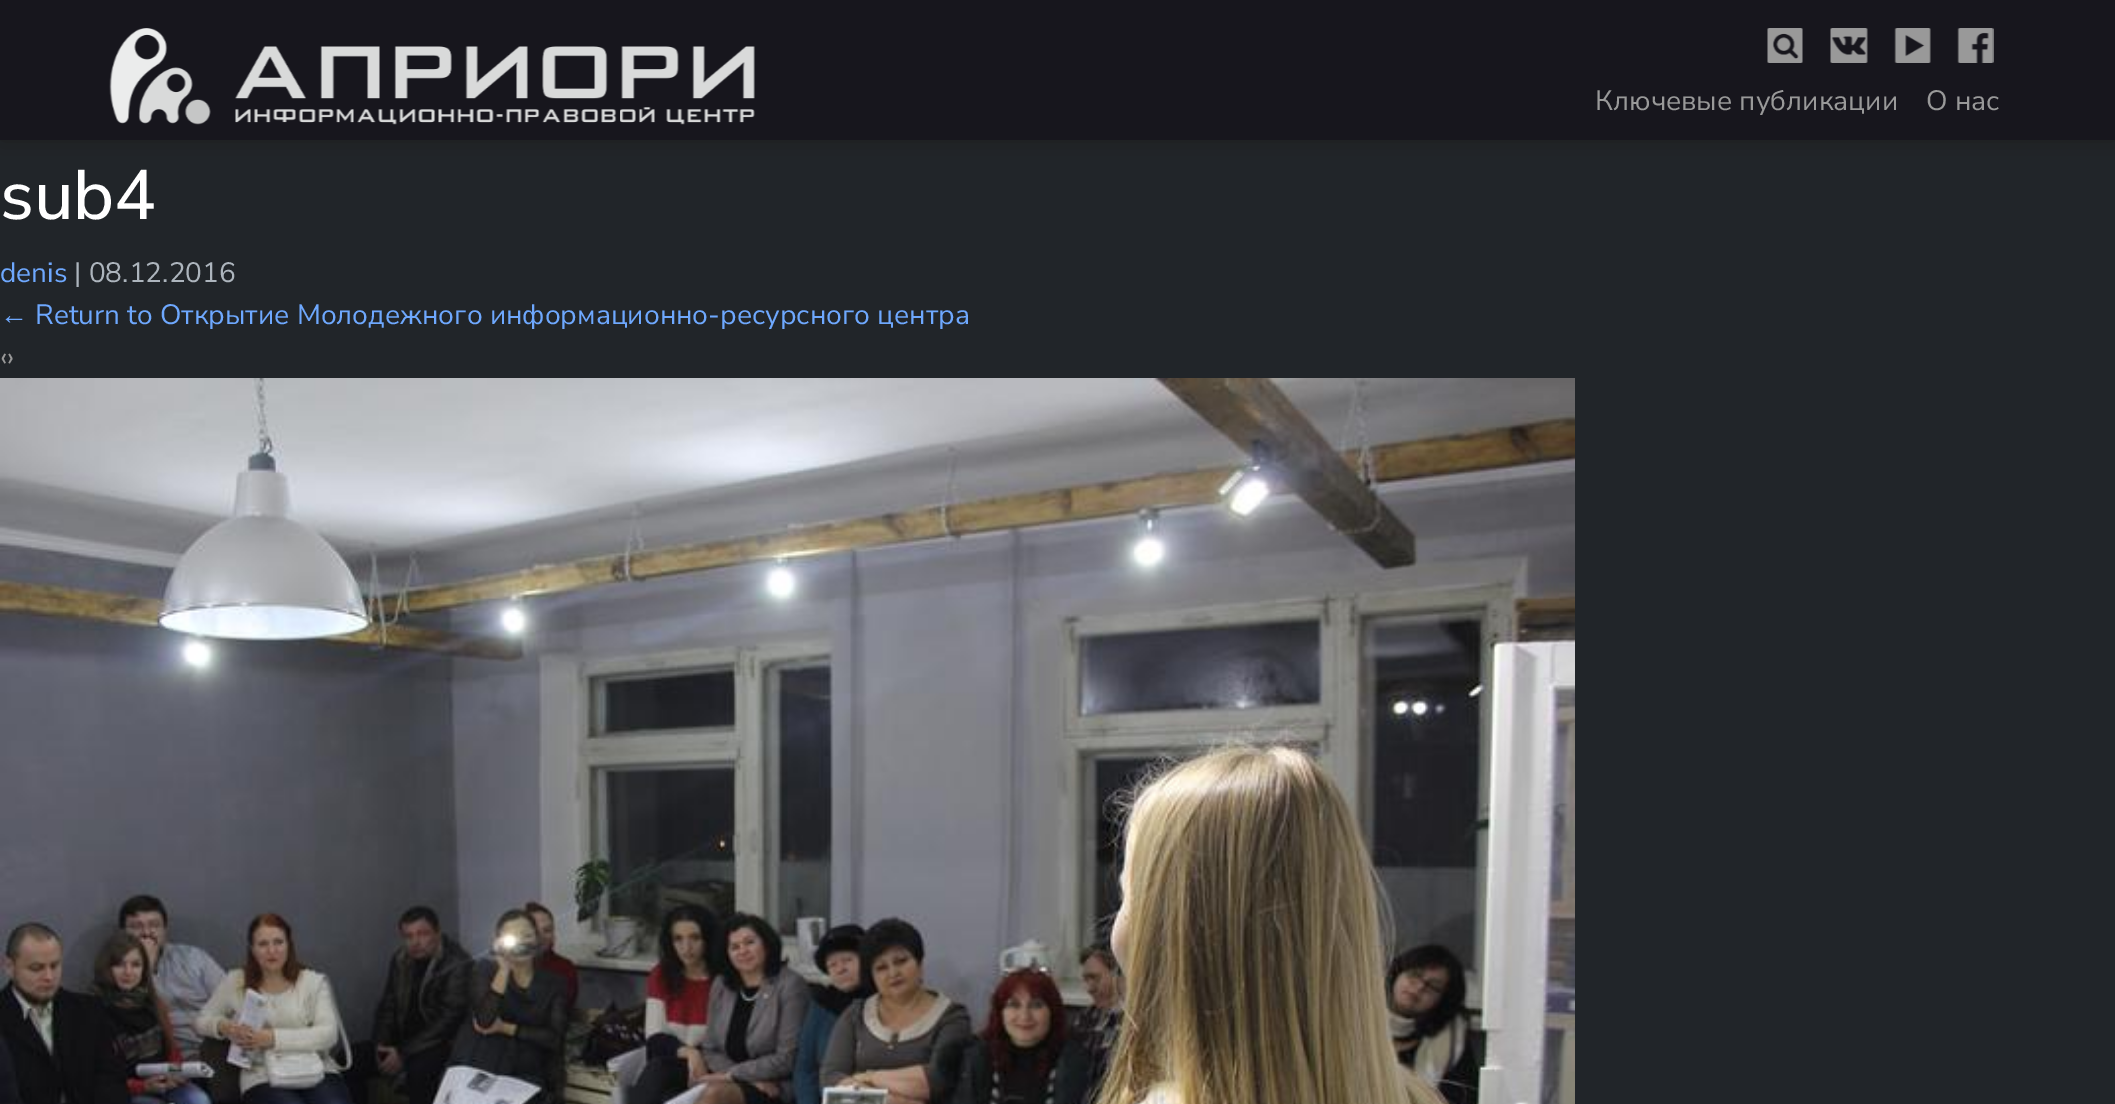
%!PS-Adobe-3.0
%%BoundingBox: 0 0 2115 1104
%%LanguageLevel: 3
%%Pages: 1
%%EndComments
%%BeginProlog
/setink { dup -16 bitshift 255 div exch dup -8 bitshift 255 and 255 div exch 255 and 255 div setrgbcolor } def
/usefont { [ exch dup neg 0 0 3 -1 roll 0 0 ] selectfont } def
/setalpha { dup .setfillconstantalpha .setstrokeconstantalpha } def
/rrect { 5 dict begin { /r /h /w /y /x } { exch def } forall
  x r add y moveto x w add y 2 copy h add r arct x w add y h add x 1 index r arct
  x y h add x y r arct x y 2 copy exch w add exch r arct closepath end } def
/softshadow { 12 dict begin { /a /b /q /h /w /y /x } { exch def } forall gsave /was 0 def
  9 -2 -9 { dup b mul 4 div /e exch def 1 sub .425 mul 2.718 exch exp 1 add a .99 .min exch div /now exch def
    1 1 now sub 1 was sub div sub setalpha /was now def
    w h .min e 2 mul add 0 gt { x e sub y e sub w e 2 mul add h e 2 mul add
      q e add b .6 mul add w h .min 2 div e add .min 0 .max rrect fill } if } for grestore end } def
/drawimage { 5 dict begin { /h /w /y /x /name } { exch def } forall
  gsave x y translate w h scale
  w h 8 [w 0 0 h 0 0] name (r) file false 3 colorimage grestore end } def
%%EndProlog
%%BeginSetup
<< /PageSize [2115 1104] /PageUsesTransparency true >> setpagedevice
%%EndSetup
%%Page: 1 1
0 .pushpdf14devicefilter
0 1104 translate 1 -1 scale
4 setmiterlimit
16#212529 setink
0 0 2115 1104 rectfill
16#1D1D1D setink
0 0 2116 140 0 13 1 softshadow
16#17161D setink
0 0 2115 140 rectfill
(img1.raw) 109 28 646 97 drawimage
(img2.raw) 1767 28 36 35 drawimage
(img3.raw) 1830 28 38 35 drawimage
(img4.raw) 1894 28 37 35 drawimage
(img5.raw) 1957 28 37 35 drawimage
/NunitoSans-Regular 28 usefont
16#999999 setink
1595 110 moveto (Ключевые публикации) show
1926 110 moveto (О нас) show
/NunitoSans-Medium 70 usefont
16#FFFFFF setink
0 219 moveto (sub4) show
/NunitoSans-Regular 28 usefont
16#6EA8FE setink
0 282 moveto (denis) show
16#ADB5BD setink
74 282 moveto (| 08.12.2016) show
/LiberationSans-Regular 28 usefont
16#6EA8FE setink
0 324 moveto (←) show
/NunitoSans-Regular 28 usefont
35 324 moveto (Return to Открытие Молодежного информационно-ресурсного центра) show
16#999999 setink
0 366 moveto (‹›) show
(img6.raw) 0 378 1575 726 drawimage
.poppdf14devicefilter showpage
%%EOF
